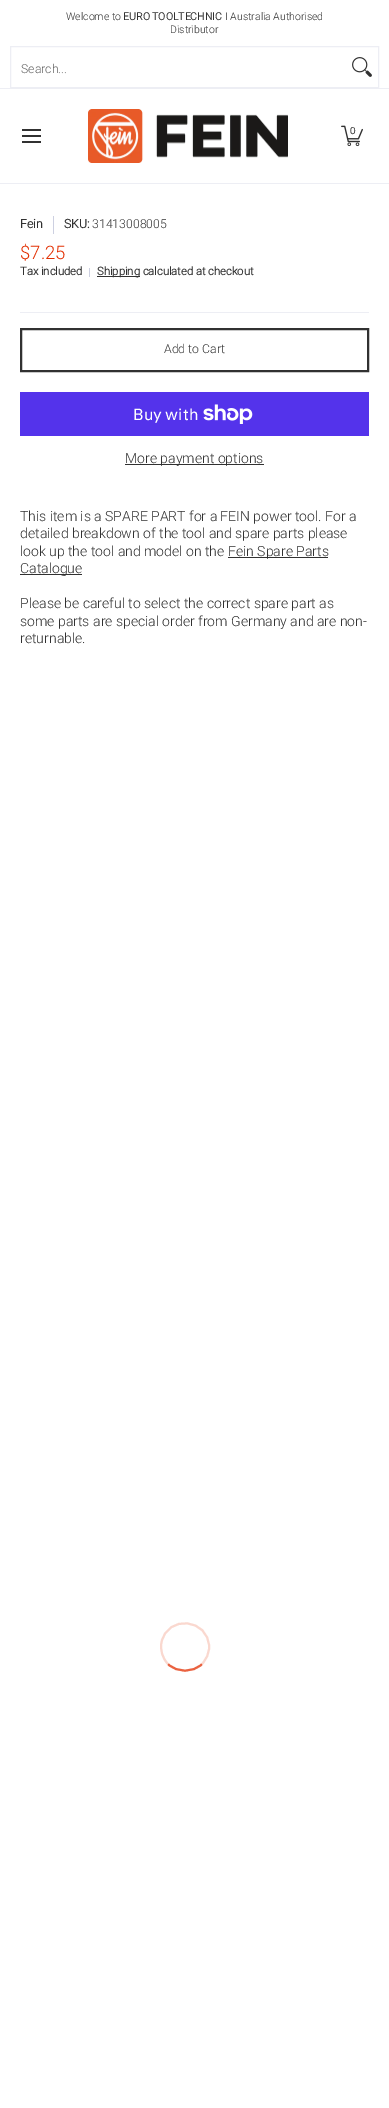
%!PS-Adobe-3.0
%%BoundingBox: 0 0 389 2108
%%LanguageLevel: 3
%%Pages: 1
%%EndComments
%%BeginProlog
/setink { dup -16 bitshift 255 div exch dup -8 bitshift 255 and 255 div exch 255 and 255 div setrgbcolor } def
/usefont { [ exch dup neg 0 0 3 -1 roll 0 0 ] selectfont } def
/drawimage { 5 dict begin { /h /w /y /x /name } { exch def } forall
  gsave x y translate w h scale
  w h 8 [w 0 0 h 0 0] name (r) file false 3 colorimage grestore end } def
%%EndProlog
%%BeginSetup
<< /PageSize [389 2108] >> setpagedevice
%%EndSetup
%%Page: 1 1
0 2108 translate 1 -1 scale
4 setmiterlimit
16#FFFFFF setink
0 0 389 2108 rectfill
16#EDEEF4 setink
0 88 389 1 rectfill
/Roboto-Light 10.5 usefont
16#313131 setink
66 20 moveto (Welcome to) show
/Roboto-Bold 10.5 usefont
123 20 moveto (EURO TOOLTECHNIC) show
/Roboto-Light 10.5 usefont
225 20 moveto (I Australia Authorised) show
170 33 moveto (Distributor) show
16#EDEEF4 setink
10.5 46.5 368 41 rectstroke
/Roboto-Light 12.25 usefont
16#656565 setink
21 73 moveto (Search...) show
(img1.raw) 352 57 20 20 drawimage
[
    [0 183 389 1 16#EDEEF4]
    [22 129 19 2 16#313131]
    [22 141 19 2 16#313131]
    [22 135 19 2 16#313131]
] { aload pop setink rectfill } forall
(img2.raw) 88 109 200 54 drawimage
(img3.raw) 341 125 22 22 drawimage
/LiberationSans-Regular 10 usefont
350 134 moveto (0) show
/Roboto-Bold 12.25 usefont
20 228 moveto (Fein) show
16#CDD0E1 setink
53 216 1 18 rectfill
16#313131 setink
64 228 moveto (SKU:) show
/Roboto-Light 12.25 usefont
92 228 moveto (31413008005) show
16#EDEEF4 setink
20 312 349 1 rectfill
/Roboto-Light 18.5 usefont
16#E32E00 setink
20 259 moveto ($7.25) show
/Roboto-Bold 11.25 usefont
16#313131 setink
20 275 moveto (Tax included) show
16#CDD0E1 setink
89 268 1 9 rectfill
16#313131 setink
97 276 43 1 rectfill
97 275 moveto (Shipping calculated at checkout) show
2 setlinewidth
21 329 347 42 rectstroke
/Roboto-Light 12.25 usefont
164 353 moveto (Add to Cart) show
16#5433EB setink
20 392 349 44 rectfill
/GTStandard-Regular 16 usefont
16#FFFFFF setink
133 420 moveto (Buy with) show
(img4.raw) 203 404 50 20 drawimage
16#313131 setink
125 464 139 1 rectfill
/Roboto-Light 14 usefont
[
    [(More payment options) 125 463]
    [(This item is a SPARE PART for a FEIN power tool. For a) 20 521]
    [(detailed breakdown of the tool and spare parts please) 20 538]
    [(look up the tool and model on the) 20 556]
] { aload pop moveto show } forall
228 557 100 1 rectfill
228 556 moveto (Fein Spare Parts) show
20 574 62 1 rectfill
[
    [(Catalogue) 20 573]
    [(Please be careful to select the correct spare part as) 20 608]
    [(some parts are special order from Germany and are non-) 20 626]
    [(returnable.) 20 643]
] { aload pop moveto show } forall
16#EA6240 setink
202 1664 moveto 192.5 1673 177.5 1673 168 1664 curveto stroke
16#FAD8CF setink
168 1664 moveto 162.5 1658.5 160 1650 161.5 1642.5 curveto 167 1614 209 1618.5 209 1647 curveto 209 1653.5 206.5 1659.5 202 1664 curveto stroke
showpage
%%EOF
